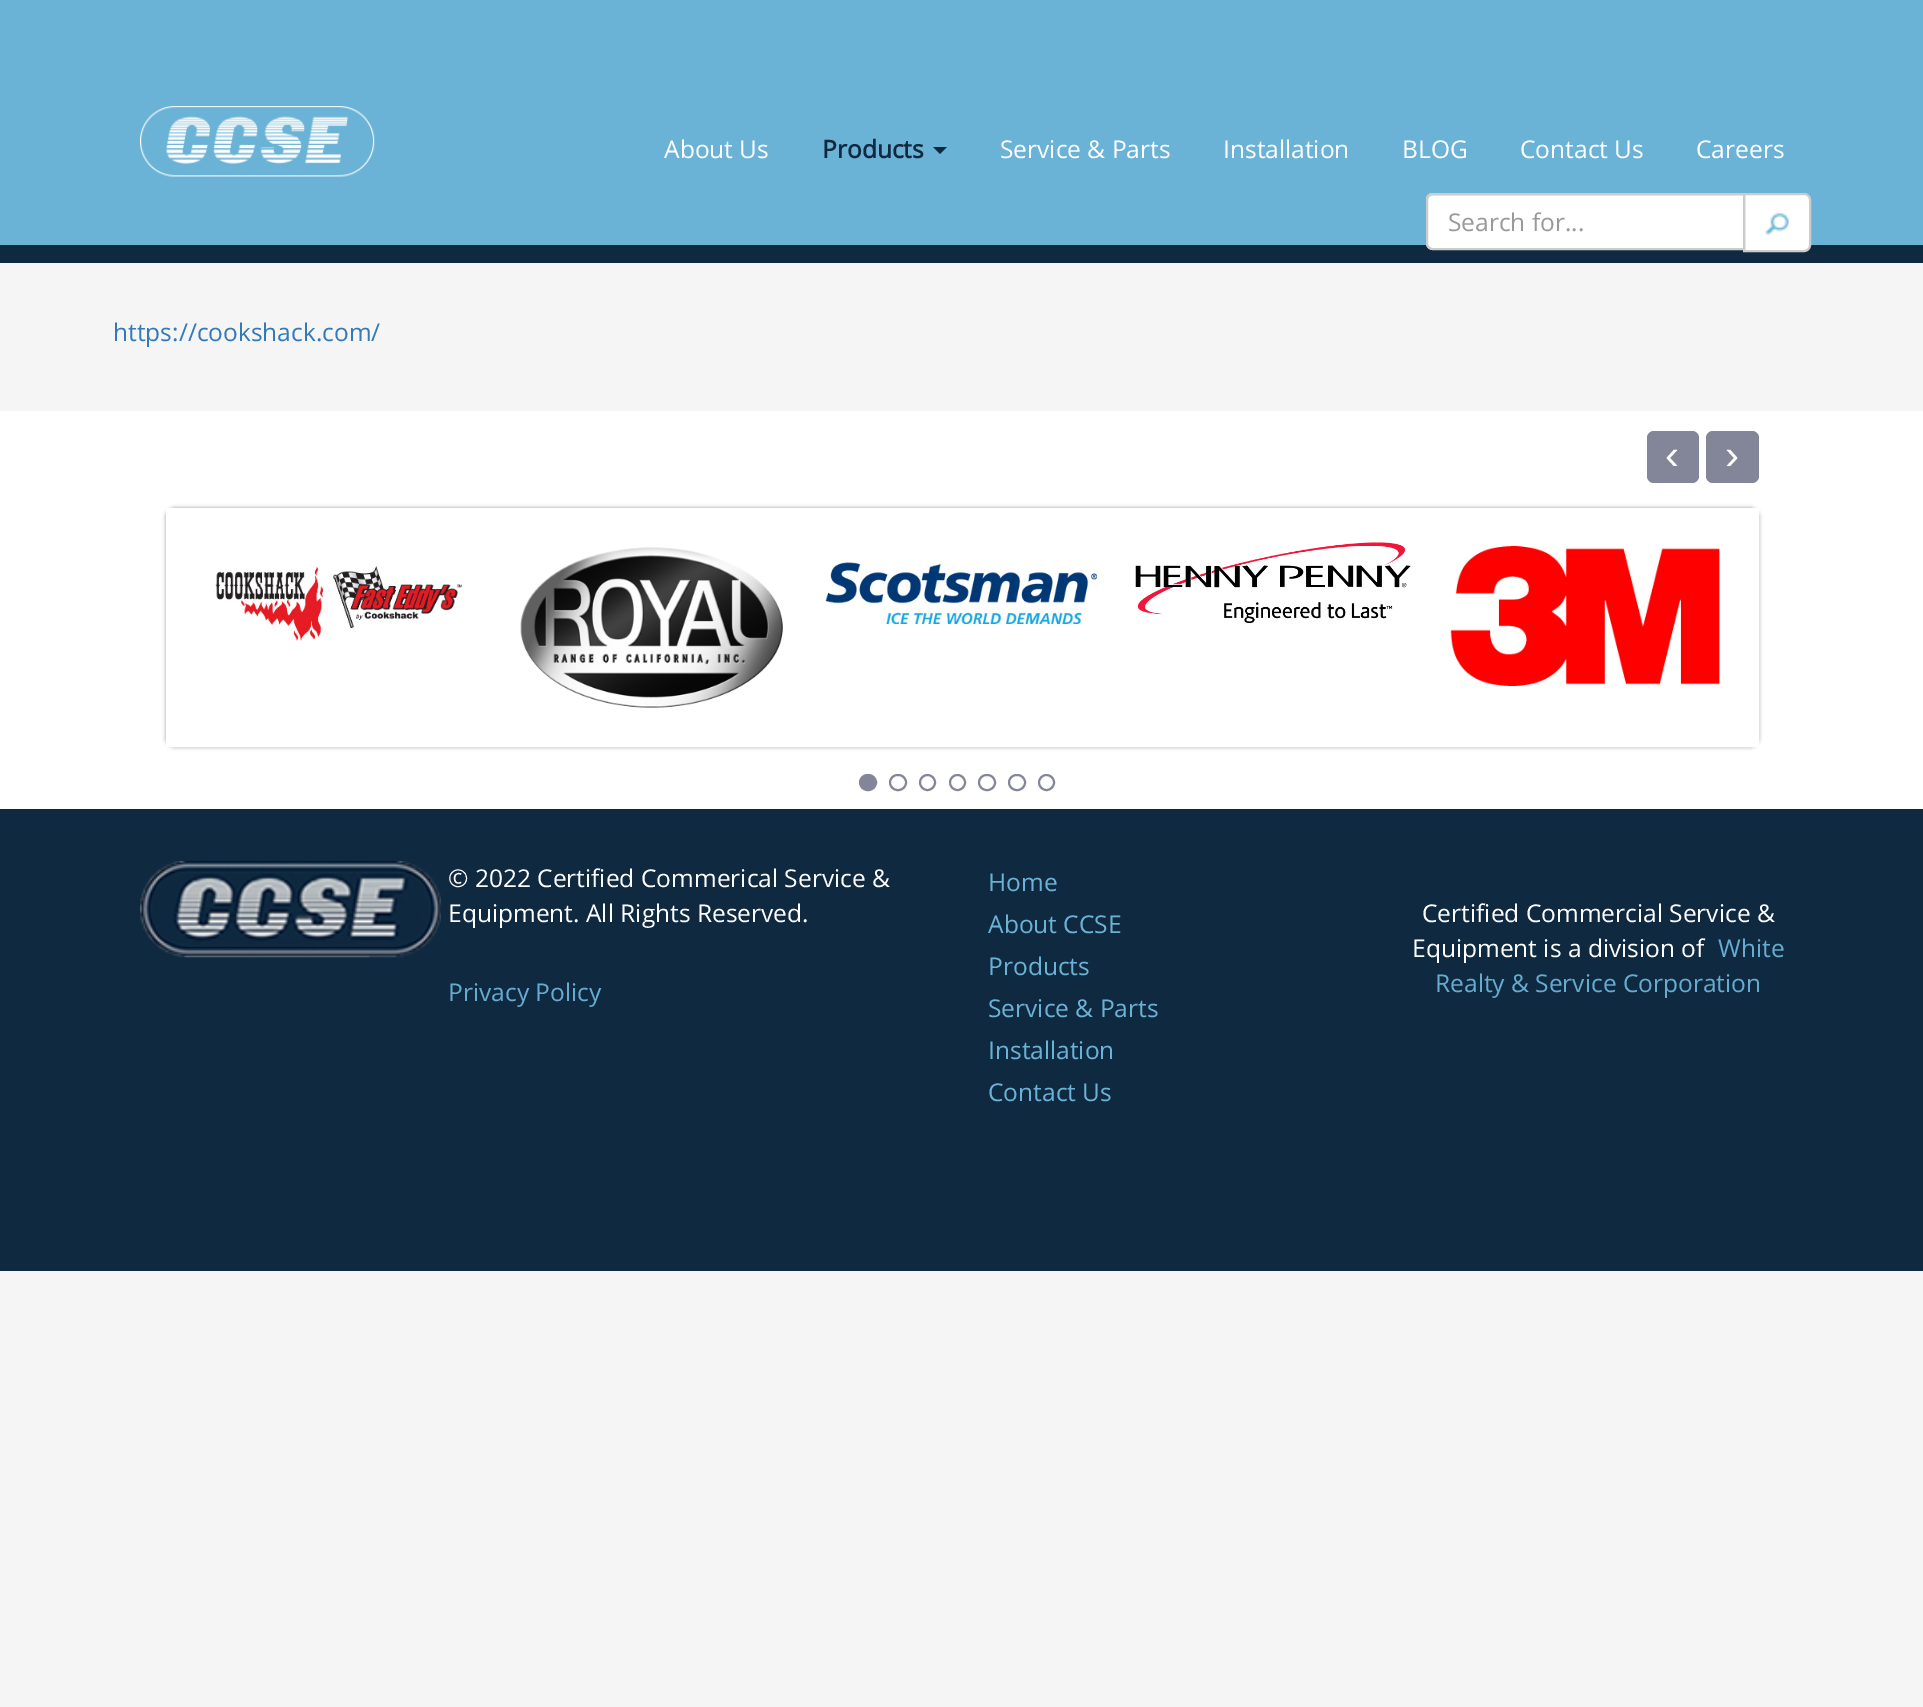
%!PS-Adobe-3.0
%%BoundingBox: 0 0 1923 1707
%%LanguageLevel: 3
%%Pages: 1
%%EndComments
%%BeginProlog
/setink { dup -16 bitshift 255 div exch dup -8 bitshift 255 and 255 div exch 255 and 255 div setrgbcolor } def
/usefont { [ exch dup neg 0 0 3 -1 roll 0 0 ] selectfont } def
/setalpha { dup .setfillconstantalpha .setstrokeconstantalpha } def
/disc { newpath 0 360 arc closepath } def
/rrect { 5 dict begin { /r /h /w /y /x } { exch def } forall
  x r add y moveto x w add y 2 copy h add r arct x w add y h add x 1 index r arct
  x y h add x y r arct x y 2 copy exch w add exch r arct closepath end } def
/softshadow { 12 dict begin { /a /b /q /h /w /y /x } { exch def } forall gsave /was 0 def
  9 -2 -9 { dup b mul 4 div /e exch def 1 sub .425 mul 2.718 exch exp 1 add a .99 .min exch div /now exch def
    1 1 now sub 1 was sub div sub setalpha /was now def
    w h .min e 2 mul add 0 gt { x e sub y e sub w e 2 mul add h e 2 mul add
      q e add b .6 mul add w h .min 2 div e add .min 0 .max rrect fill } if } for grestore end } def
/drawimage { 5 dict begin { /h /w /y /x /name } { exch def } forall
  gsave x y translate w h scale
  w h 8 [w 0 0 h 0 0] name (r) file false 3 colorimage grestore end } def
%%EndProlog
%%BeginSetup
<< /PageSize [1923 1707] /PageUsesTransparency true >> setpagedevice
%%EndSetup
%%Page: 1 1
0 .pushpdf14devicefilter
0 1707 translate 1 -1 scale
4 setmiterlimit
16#F5F5F5 setink
0 0 1923 1707 rectfill
16#6BB3D6 setink
0 0 1923 245 rectfill
16#0F2940 setink
0 245 1923 18 rectfill
(img1.raw) 140 106 235 71 drawimage
/OpenSans-Regular 24.5 usefont
16#FFFFFF setink
664 158 moveto (About Us) show
/OpenSans-Bold 24.5 usefont
16#0F2940 setink
822 158 moveto (Products) show
933 147 moveto 947 147 lineto 940 154 lineto closepath fill
/OpenSans-Regular 24.5 usefont
16#FFFFFF setink
[
    [(Service & Parts) 1000 158]
    [(Installation) 1223 158]
    [(BLOG) 1402 158]
    [(Contact Us) 1520 158]
    [(Careers) 1696 158]
] { aload pop moveto show } forall
1744 194 moveto 1804 194 lineto 1807.5 194 1810 196.5 1810 200 curveto 1810 245 lineto 1810 248.5 1807.5 251 1804 251 curveto 1744 251 lineto closepath gsave fill grestore
16#CCCCCC setink
2 setlinewidth
stroke
16#FFFFFF setink
1433 193 moveto 1745 193 lineto 1745 250 lineto 1433 250 lineto 1429 250 1426 247 1426 243 curveto 1426 200 lineto 1426 196 1429 193 1433 193 curveto closepath fill
16#ECECEC setink
1433 196 moveto 1743 196 lineto 1743 194 lineto 1433 194 lineto 1429 194 1428 198 1428 201 curveto 1428 198 1430 196 1433 196 curveto closepath fill
16#CCCCCC setink
1433 194 moveto 1744 194 lineto 1744 249 lineto 1433 249 lineto 1429.5 249 1427 246.5 1427 243 curveto 1427 200 lineto 1427 196.5 1429.5 194 1433 194 curveto closepath stroke
16#999999 setink
1448 231 moveto (Search for...) show
(img2.raw) 1765 213 24 22 drawimage
16#337AB7 setink
113 341 moveto (https://cookshack.com/) show
16#FFFFFF setink
0 411 1923 398 rectfill
gsave
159 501 moveto 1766 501 lineto 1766 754 lineto 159 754 lineto closepath 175 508 moveto 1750 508 lineto 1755 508 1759 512 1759 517 curveto 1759 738 lineto 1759 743 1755 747 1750 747 curveto 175 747 lineto 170 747 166 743 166 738 curveto 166 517 lineto 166 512 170 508 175 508 curveto closepath eoclip newpath
16#999999 setink
166 508 1593 239 9 2 1 softshadow
grestore
18 setlinewidth
175 517 1575 221 rectstroke
16#838698 setink
1647 431 52 52 7 rrect fill
/LiberationSans-Regular 42 usefont
16#FFFFFF setink
1665 469 moveto (‹) show
16#838698 setink
1706 431 53 52 7 rrect fill
16#FFFFFF setink
1725 469 moveto (›) show
(img3.raw) 215 565 248 76 drawimage
(img4.raw) 520 547 263 161 drawimage
(img5.raw) 825 562 272 66 drawimage
(img6.raw) 1135 542 276 81 drawimage
(img7.raw) 1450 546 270 140 drawimage
16#838698 setink
860 775 16 15 7.5 rrect gsave fill grestore
2 setlinewidth
stroke
890 775 16 15 7.5 rrect stroke
927.5 782.5 7.5 disc stroke
957.5 782.5 7.5 disc stroke
979 775 16 15 7.5 rrect stroke
1009 775 16 15 7.5 rrect stroke
1046.5 782.5 7.5 disc stroke
16#0F2940 setink
0 809 1923 462 rectfill
(img8.raw) 140 861 230 97 drawimage
(img9.raw) 140 861 301 97 drawimage
/OpenSans-Regular 24.5 usefont
16#FFFFFF setink
448 887 moveto (© 2022 Certified Commerical Service &) show
448 922 moveto (Equipment. All Rights Reserved.) show
16#66ACD0 setink
448 1001 moveto (Privacy Policy) show
16#6BB3D6 setink
[
    [(Home) 988 891]
    [(About CCSE) 988 933]
    [(Products) 988 975]
    [(Service & Parts) 988 1017]
    [(Installation) 988 1059]
    [(Contact Us) 988 1101]
] { aload pop moveto show } forall
16#FFFFFF setink
1422 922 moveto (Certified Commercial Service &) show
1412 957 moveto (Equipment is a division of) show
16#66ACD0 setink
1718 957 moveto (White) show
1435 992 moveto (Realty & Service Corporation) show
.poppdf14devicefilter showpage
%%EOF
